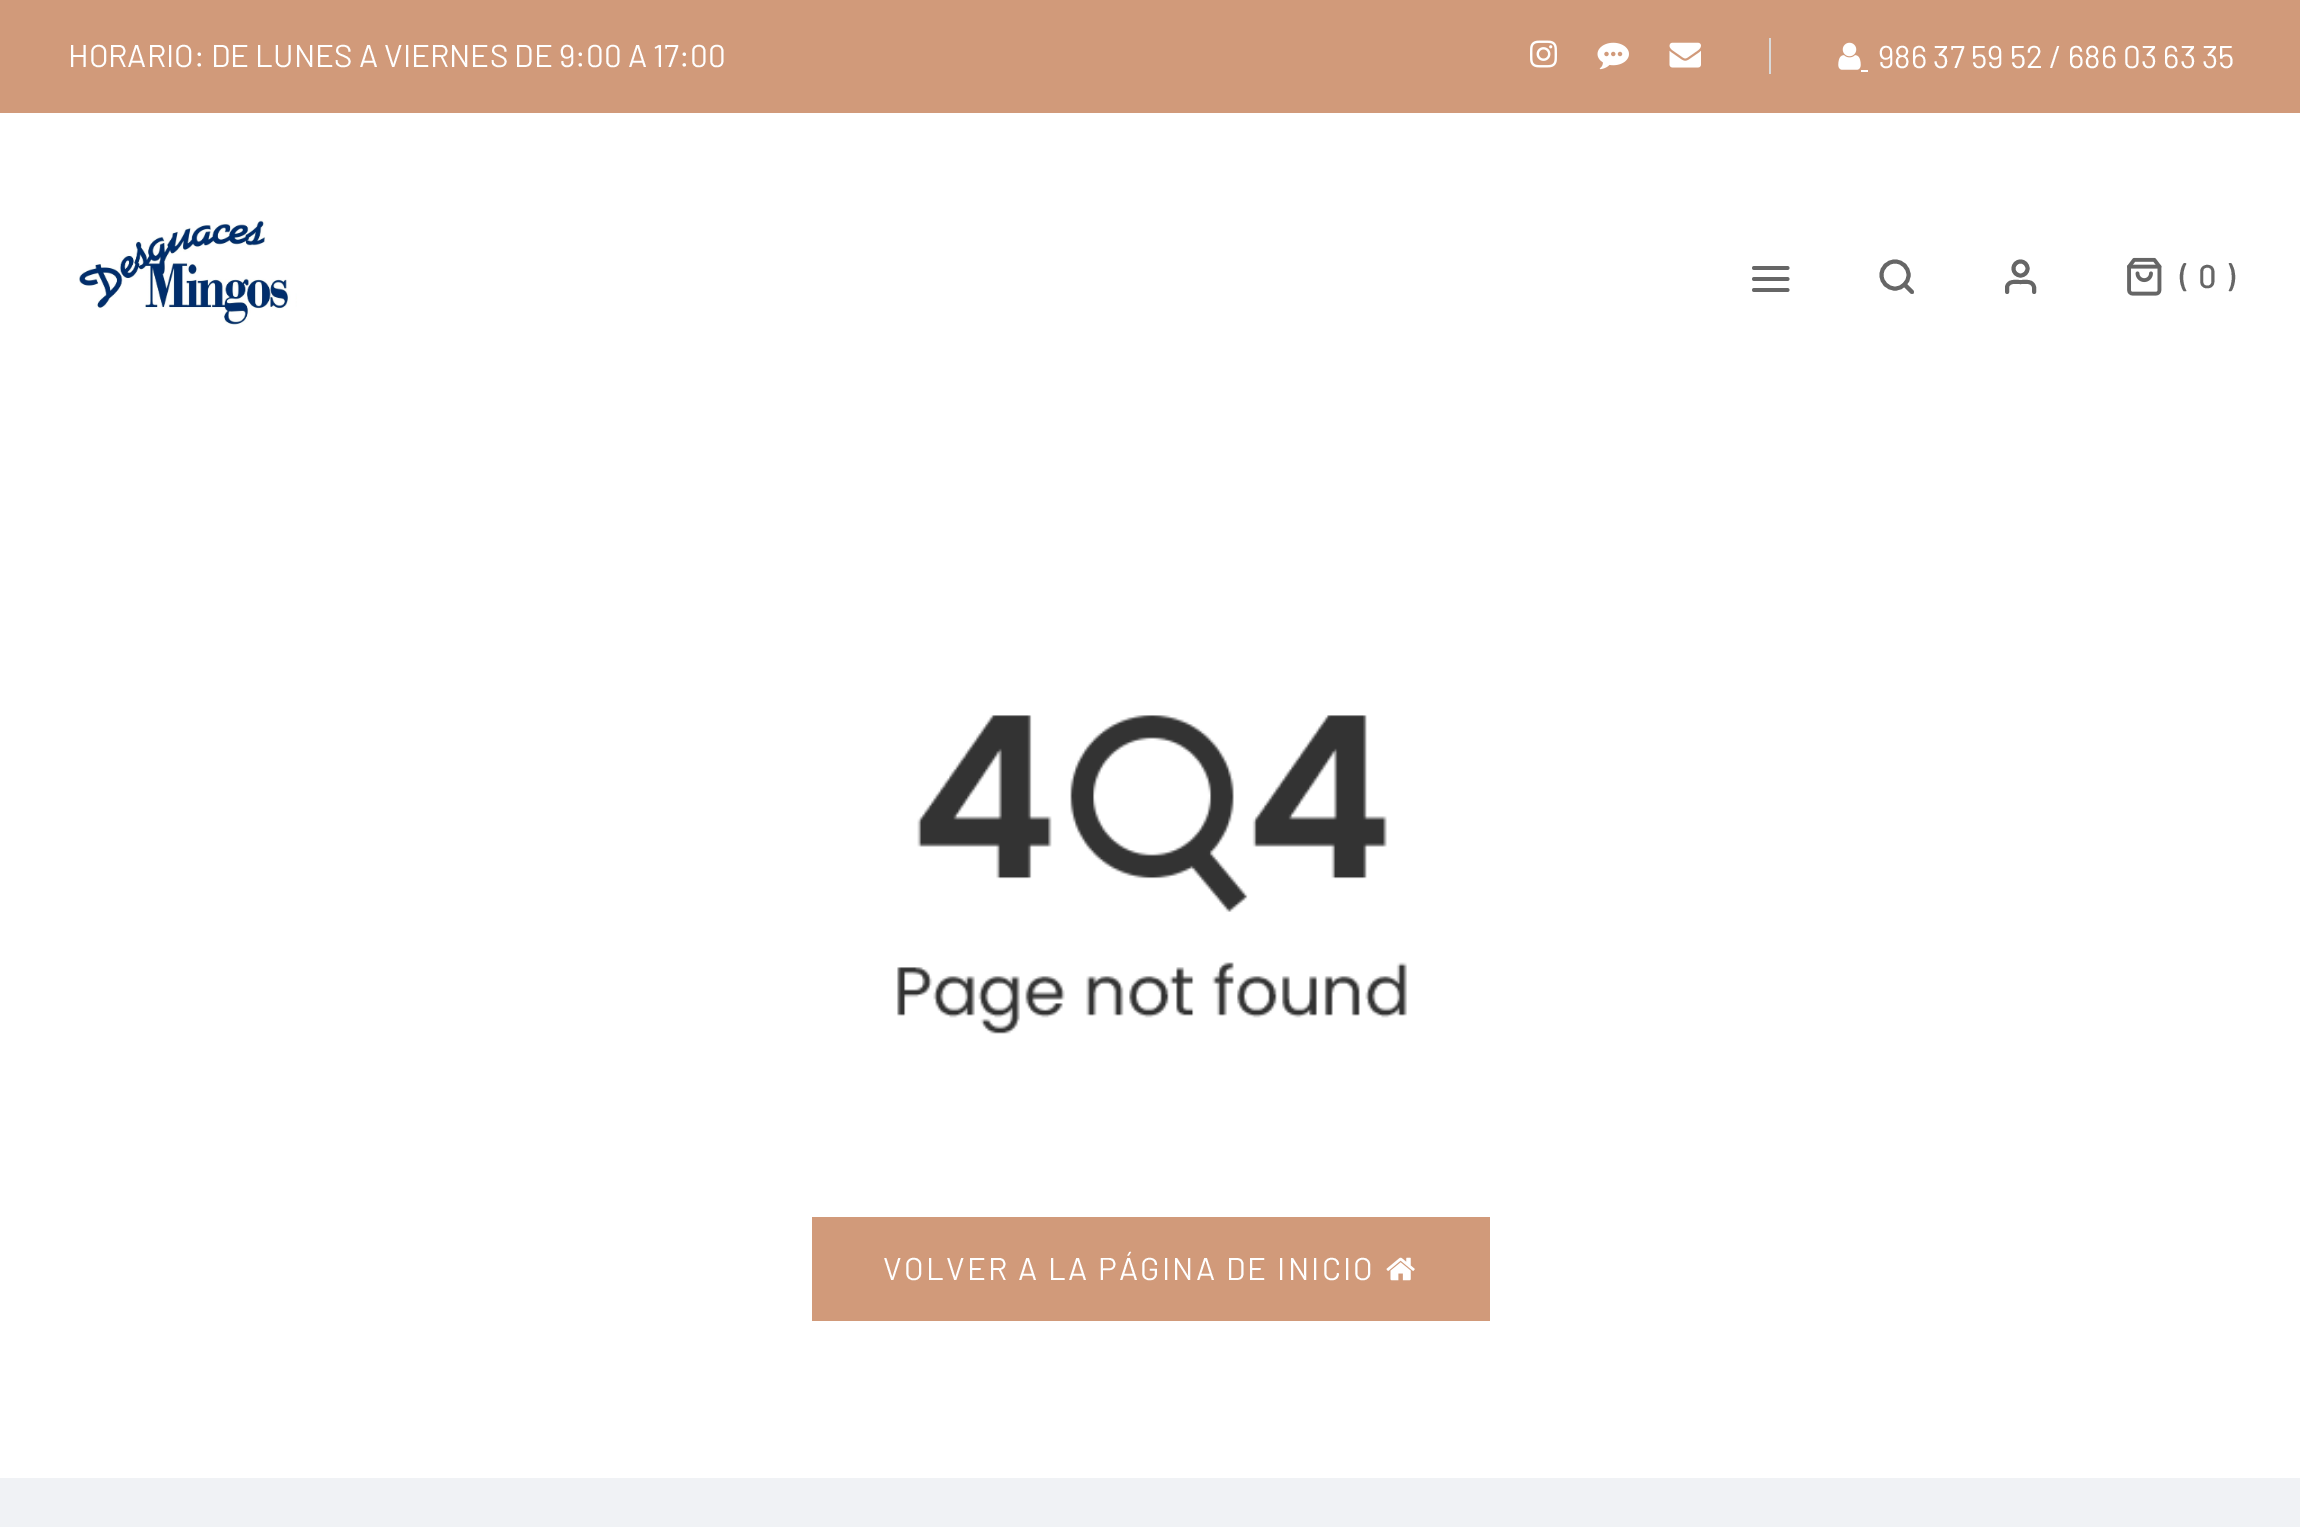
%!PS-Adobe-3.0
%%BoundingBox: 0 0 2300 1527
%%LanguageLevel: 3
%%Pages: 1
%%EndComments
%%BeginProlog
/setink { dup -16 bitshift 255 div exch dup -8 bitshift 255 and 255 div exch 255 and 255 div setrgbcolor } def
/usefont { [ exch dup neg 0 0 3 -1 roll 0 0 ] selectfont } def
/disc { newpath 0 360 arc closepath } def
/drawimage { 5 dict begin { /h /w /y /x /name } { exch def } forall
  gsave x y translate w h scale
  w h 8 [w 0 0 h 0 0] name (r) file false 3 colorimage grestore end } def
%%EndProlog
%%BeginSetup
<< /PageSize [2300 1527] >> setpagedevice
%%EndSetup
%%Page: 1 1
0 1527 translate 1 -1 scale
4 setmiterlimit
16#FFFFFF setink
0 0 2300 1527 rectfill
16#D19A7A setink
0 0 2300 113 rectfill
/Barlow-Regular 31.5 usefont
16#FFFFFF setink
68 67 moveto (HORARIO: DE LUNES A VIERNES DE 9:00 A 17:00) show
16#D9D9D9 setink
1769 38 2 36 rectfill
(img1.raw) 1530 40 27 28 drawimage
(img2.raw) 1597 42 32 28 drawimage
(img3.raw) 1669 42 32 26 drawimage
(img4.raw) 1838 42 23 28 drawimage
16#FFFFFF setink
1878 68 moveto (986 37 59 52 / 686 03 63 35) show
1861 70 7 2 rectfill
(img5.raw) 79 220 218 105 drawimage
16#666666 setink
3.8 setlinewidth
1 setlinecap
1 setlinejoin
1754 279 moveto 1787.5 279 lineto 1754 268 moveto 1787.5 268 lineto 1754 290 moveto 1787.5 290 lineto stroke
3.9 setlinewidth
0 setlinecap
0 setlinejoin
1895 275 13.5 disc stroke
1 setlinecap
1 setlinejoin
1912 292 moveto 1904.5 284.5 lineto stroke
0 setlinecap
0 setlinejoin
2020.5 268.5 7 disc stroke
1 setlinecap
1 setlinejoin
2034 292 moveto 2034 287 lineto 2032.5 280.5 2025.5 282 2020.5 282 curveto 2015.5 282 2008.5 280.5 2007 287 curveto 2007 292 lineto stroke
(img6.raw) 2127 257 35 39 drawimage
/Barlow-Bold 31.5 usefont
[
    [(\() 2180 288]
    [(0) 2198 288]
    [(\)) 2226 288]
] { aload pop moveto show } forall
(img7.raw) 897 715 510 319 drawimage
16#D19A7A setink
812 1217 678 104 rectfill
/Barlow-Regular 31.5 usefont
16#FFFFFF setink
883 1280 moveto 2.25 0 (VOLVER A LA PÁGINA DE INICIO) ashow
(img8.raw) 1386 1257 29 24 drawimage
16#F0F2F5 setink
0 1478 2300 49 rectfill
showpage
%%EOF
